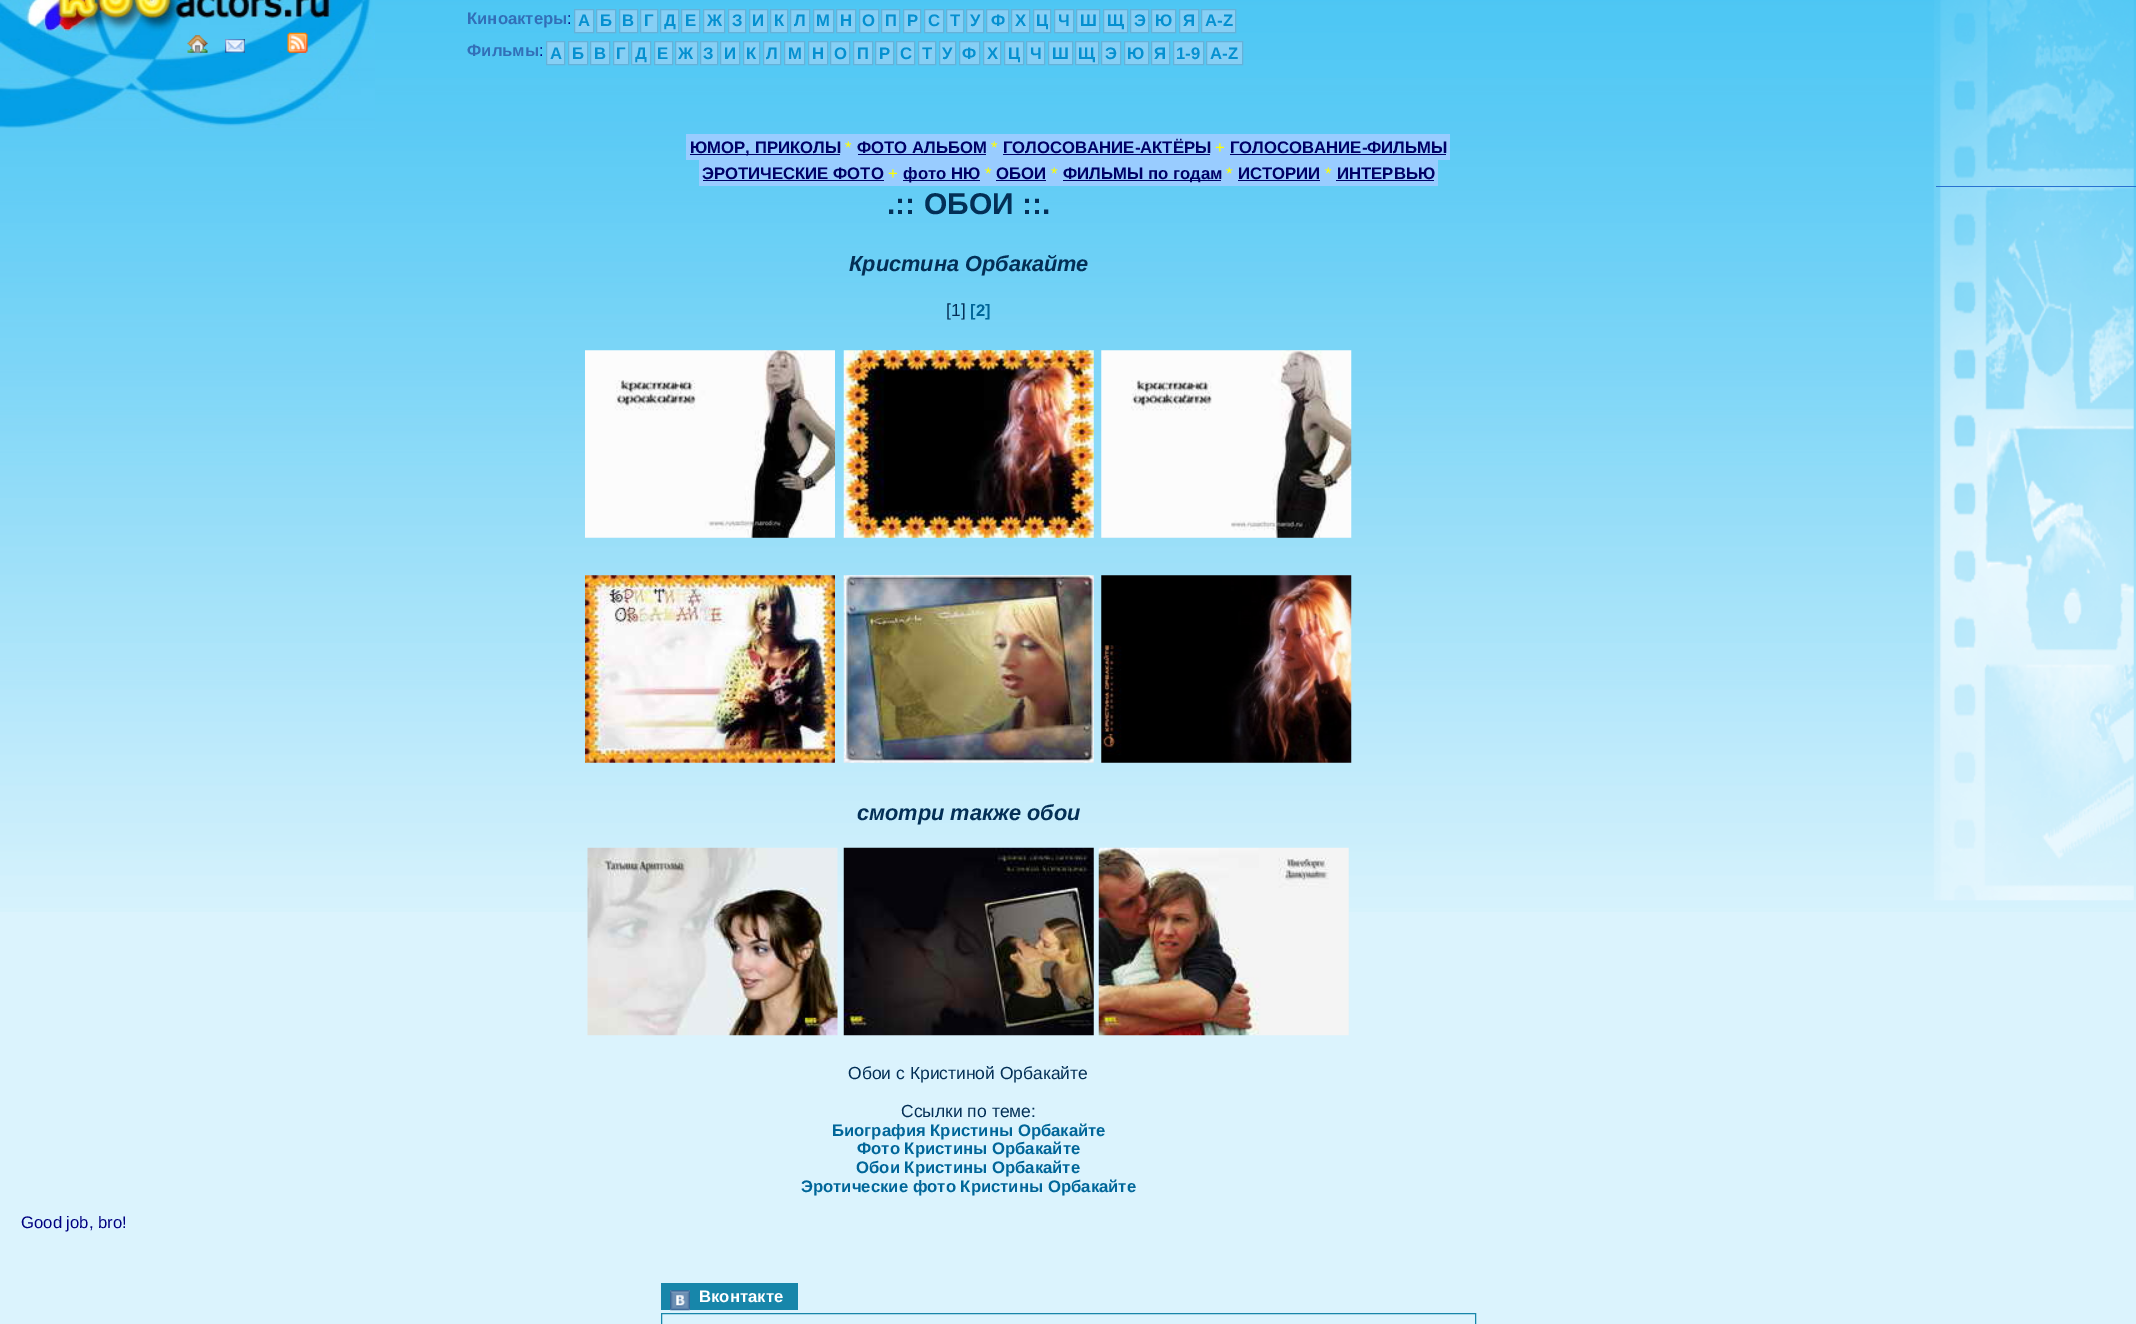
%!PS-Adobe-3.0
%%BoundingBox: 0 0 2136 1324
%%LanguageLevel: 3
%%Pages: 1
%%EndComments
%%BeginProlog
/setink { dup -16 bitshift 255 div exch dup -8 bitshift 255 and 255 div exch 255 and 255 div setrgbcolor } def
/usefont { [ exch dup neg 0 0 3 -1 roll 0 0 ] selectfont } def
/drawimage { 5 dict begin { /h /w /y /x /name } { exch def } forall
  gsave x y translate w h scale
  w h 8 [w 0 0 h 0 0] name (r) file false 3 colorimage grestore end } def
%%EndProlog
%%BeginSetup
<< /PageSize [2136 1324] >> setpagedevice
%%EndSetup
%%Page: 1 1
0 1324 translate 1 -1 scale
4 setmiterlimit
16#DBF3FD setink
0 0 2136 1324 rectfill
(img1.raw) 0 0 2136 912 drawimage
(img2.raw) 1933 0 201 901 drawimage
(img3.raw) 0 0 375 129 drawimage
(img4.raw) 187 35 21 18 drawimage
(img5.raw) 225 39 20 14 drawimage
(img6.raw) 287 32 21 21 drawimage
/LiberationSans-Bold 16.7 usefont
16#326FB8 setink
467 24 moveto (Киноактеры) show
/LiberationSans-Regular 16.7 usefont
16#000080 setink
567 24 moveto (:) show
16#86CFF5 setink
574.5 9.5 moveto 593.5 9.5 lineto 593.5 32.5 lineto 574.5 32.5 lineto closepath gsave fill grestore
16#66B1D8 setink
stroke
/LiberationSans-Bold 16.7 usefont
16#0490D0 setink
578 26 moveto (А) show
16#86CFF5 setink
596.5 9.5 moveto 615.5 9.5 lineto 615.5 32.5 lineto 596.5 32.5 lineto closepath gsave fill grestore
16#66B1D8 setink
stroke
16#0490D0 setink
600 26 moveto (Б) show
16#86CFF5 setink
619.5 9.5 moveto 637.5 9.5 lineto 637.5 32.5 lineto 619.5 32.5 lineto closepath gsave fill grestore
16#66B1D8 setink
stroke
16#0490D0 setink
622 26 moveto (В) show
16#86CFF5 setink
640.5 9.5 moveto 657.5 9.5 lineto 657.5 32.5 lineto 640.5 32.5 lineto closepath gsave fill grestore
16#66B1D8 setink
stroke
16#0490D0 setink
644 26 moveto (Г) show
16#86CFF5 setink
660.5 9.5 moveto 678.5 9.5 lineto 678.5 32.5 lineto 660.5 32.5 lineto closepath gsave fill grestore
16#66B1D8 setink
stroke
16#0490D0 setink
664 26 moveto (Д) show
16#86CFF5 setink
681.5 9.5 moveto 699.5 9.5 lineto 699.5 32.5 lineto 681.5 32.5 lineto closepath gsave fill grestore
16#66B1D8 setink
stroke
16#0490D0 setink
685 26 moveto (Е) show
16#86CFF5 setink
703.5 9.5 moveto 724.5 9.5 lineto 724.5 32.5 lineto 703.5 32.5 lineto closepath gsave fill grestore
16#66B1D8 setink
stroke
16#0490D0 setink
707 26 moveto (Ж) show
16#86CFF5 setink
728.5 9.5 moveto 745.5 9.5 lineto 745.5 32.5 lineto 728.5 32.5 lineto closepath gsave fill grestore
16#66B1D8 setink
stroke
16#0490D0 setink
732 26 moveto (З) show
16#86CFF5 setink
749.5 9.5 moveto 767.5 9.5 lineto 767.5 32.5 lineto 749.5 32.5 lineto closepath gsave fill grestore
16#66B1D8 setink
stroke
16#0490D0 setink
752 26 moveto (И) show
16#86CFF5 setink
770.5 9.5 moveto 787.5 9.5 lineto 787.5 32.5 lineto 770.5 32.5 lineto closepath gsave fill grestore
16#66B1D8 setink
stroke
16#0490D0 setink
774 26 moveto (К) show
16#86CFF5 setink
790.5 9.5 moveto 809.5 9.5 lineto 809.5 32.5 lineto 790.5 32.5 lineto closepath gsave fill grestore
16#66B1D8 setink
stroke
16#0490D0 setink
794 26 moveto (Л) show
16#86CFF5 setink
813.5 9.5 moveto 833.5 9.5 lineto 833.5 32.5 lineto 813.5 32.5 lineto closepath gsave fill grestore
16#66B1D8 setink
stroke
16#0490D0 setink
816 26 moveto (М) show
16#86CFF5 setink
836.5 9.5 moveto 855.5 9.5 lineto 855.5 32.5 lineto 836.5 32.5 lineto closepath gsave fill grestore
16#66B1D8 setink
stroke
16#0490D0 setink
840 26 moveto (Н) show
16#86CFF5 setink
859.5 9.5 moveto 878.5 9.5 lineto 878.5 32.5 lineto 859.5 32.5 lineto closepath gsave fill grestore
16#66B1D8 setink
stroke
16#0490D0 setink
862 26 moveto (О) show
16#86CFF5 setink
881.5 9.5 moveto 899.5 9.5 lineto 899.5 32.5 lineto 881.5 32.5 lineto closepath gsave fill grestore
16#66B1D8 setink
stroke
16#0490D0 setink
885 26 moveto (П) show
16#86CFF5 setink
903.5 9.5 moveto 920.5 9.5 lineto 920.5 32.5 lineto 903.5 32.5 lineto closepath gsave fill grestore
16#66B1D8 setink
stroke
16#0490D0 setink
907 26 moveto (Р) show
16#86CFF5 setink
924.5 9.5 moveto 943.5 9.5 lineto 943.5 32.5 lineto 924.5 32.5 lineto closepath gsave fill grestore
16#66B1D8 setink
stroke
16#0490D0 setink
928 26 moveto (С) show
16#86CFF5 setink
946.5 9.5 moveto 963.5 9.5 lineto 963.5 32.5 lineto 946.5 32.5 lineto closepath gsave fill grestore
16#66B1D8 setink
stroke
16#0490D0 setink
950 26 moveto (Т) show
16#86CFF5 setink
966.5 9.5 moveto 983.5 9.5 lineto 983.5 32.5 lineto 966.5 32.5 lineto closepath gsave fill grestore
16#66B1D8 setink
stroke
16#0490D0 setink
970 26 moveto (У) show
16#86CFF5 setink
986.5 9.5 moveto 1008.5 9.5 lineto 1008.5 32.5 lineto 986.5 32.5 lineto closepath gsave fill grestore
16#66B1D8 setink
stroke
16#0490D0 setink
991 26 moveto (Ф) show
16#86CFF5 setink
1011.5 9.5 moveto 1029.5 9.5 lineto 1029.5 32.5 lineto 1011.5 32.5 lineto closepath gsave fill grestore
16#66B1D8 setink
stroke
16#0490D0 setink
1015 26 moveto (Х) show
16#86CFF5 setink
1033.5 9.5 moveto 1050.5 9.5 lineto 1050.5 32.5 lineto 1033.5 32.5 lineto closepath gsave fill grestore
16#66B1D8 setink
stroke
16#0490D0 setink
1036 26 moveto (Ц) show
16#86CFF5 setink
1054.5 9.5 moveto 1073.5 9.5 lineto 1073.5 32.5 lineto 1054.5 32.5 lineto closepath gsave fill grestore
16#66B1D8 setink
stroke
16#0490D0 setink
1058 26 moveto (Ч) show
16#86CFF5 setink
1076.5 9.5 moveto 1099.5 9.5 lineto 1099.5 32.5 lineto 1076.5 32.5 lineto closepath gsave fill grestore
16#66B1D8 setink
stroke
16#0490D0 setink
1080 26 moveto (Ш) show
16#86CFF5 setink
1103.5 9.5 moveto 1127.5 9.5 lineto 1127.5 32.5 lineto 1103.5 32.5 lineto closepath gsave fill grestore
16#66B1D8 setink
stroke
16#0490D0 setink
1107 26 moveto (Щ) show
16#86CFF5 setink
1130.5 9.5 moveto 1148.5 9.5 lineto 1148.5 32.5 lineto 1130.5 32.5 lineto closepath gsave fill grestore
16#66B1D8 setink
stroke
16#0490D0 setink
1134 26 moveto (Э) show
16#86CFF5 setink
1151.5 9.5 moveto 1175.5 9.5 lineto 1175.5 32.5 lineto 1151.5 32.5 lineto closepath gsave fill grestore
16#66B1D8 setink
stroke
16#0490D0 setink
1155 26 moveto (Ю) show
16#86CFF5 setink
1179.5 9.5 moveto 1198.5 9.5 lineto 1198.5 32.5 lineto 1179.5 32.5 lineto closepath gsave fill grestore
16#66B1D8 setink
stroke
16#0490D0 setink
1183 26 moveto (Я) show
16#86CFF5 setink
1201.5 9.5 moveto 1235.5 9.5 lineto 1235.5 32.5 lineto 1201.5 32.5 lineto closepath gsave fill grestore
16#66B1D8 setink
stroke
16#0490D0 setink
1205 26 moveto (A-Z) show
16#326FB8 setink
467 56 moveto (Фильмы) show
/LiberationSans-Regular 16.7 usefont
16#000080 setink
539 56 moveto (:) show
16#86CFF5 setink
546.5 41.5 moveto 564.5 41.5 lineto 564.5 64.5 lineto 546.5 64.5 lineto closepath gsave fill grestore
16#66B1D8 setink
stroke
/LiberationSans-Bold 16.7 usefont
16#0490D0 setink
550 59 moveto (А) show
16#86CFF5 setink
568.5 41.5 moveto 587.5 41.5 lineto 587.5 64.5 lineto 568.5 64.5 lineto closepath gsave fill grestore
16#66B1D8 setink
stroke
16#0490D0 setink
572 59 moveto (Б) show
16#86CFF5 setink
590.5 41.5 moveto 609.5 41.5 lineto 609.5 64.5 lineto 590.5 64.5 lineto closepath gsave fill grestore
16#66B1D8 setink
stroke
16#0490D0 setink
594 59 moveto (В) show
16#86CFF5 setink
613.5 41.5 moveto 628.5 41.5 lineto 628.5 64.5 lineto 613.5 64.5 lineto closepath gsave fill grestore
16#66B1D8 setink
stroke
16#0490D0 setink
616 59 moveto (Г) show
16#86CFF5 setink
631.5 41.5 moveto 650.5 41.5 lineto 650.5 64.5 lineto 631.5 64.5 lineto closepath gsave fill grestore
16#66B1D8 setink
stroke
16#0490D0 setink
635 59 moveto (Д) show
16#86CFF5 setink
654.5 41.5 moveto 672.5 41.5 lineto 672.5 64.5 lineto 654.5 64.5 lineto closepath gsave fill grestore
16#66B1D8 setink
stroke
16#0490D0 setink
657 59 moveto (Е) show
16#86CFF5 setink
675.5 41.5 moveto 697.5 41.5 lineto 697.5 64.5 lineto 675.5 64.5 lineto closepath gsave fill grestore
16#66B1D8 setink
stroke
16#0490D0 setink
678 59 moveto (Ж) show
16#86CFF5 setink
700.5 41.5 moveto 717.5 41.5 lineto 717.5 64.5 lineto 700.5 64.5 lineto closepath gsave fill grestore
16#66B1D8 setink
stroke
16#0490D0 setink
703 59 moveto (З) show
16#86CFF5 setink
720.5 41.5 moveto 739.5 41.5 lineto 739.5 64.5 lineto 720.5 64.5 lineto closepath gsave fill grestore
16#66B1D8 setink
stroke
16#0490D0 setink
724 59 moveto (И) show
16#86CFF5 setink
743.5 41.5 moveto 759.5 41.5 lineto 759.5 64.5 lineto 743.5 64.5 lineto closepath gsave fill grestore
16#66B1D8 setink
stroke
16#0490D0 setink
746 59 moveto (К) show
16#86CFF5 setink
763.5 41.5 moveto 780.5 41.5 lineto 780.5 64.5 lineto 763.5 64.5 lineto closepath gsave fill grestore
16#66B1D8 setink
stroke
16#0490D0 setink
766 59 moveto (Л) show
16#86CFF5 setink
784.5 41.5 moveto 804.5 41.5 lineto 804.5 64.5 lineto 784.5 64.5 lineto closepath gsave fill grestore
16#66B1D8 setink
stroke
16#0490D0 setink
788 59 moveto (М) show
16#86CFF5 setink
808.5 41.5 moveto 827.5 41.5 lineto 827.5 64.5 lineto 808.5 64.5 lineto closepath gsave fill grestore
16#66B1D8 setink
stroke
16#0490D0 setink
812 59 moveto (Н) show
16#86CFF5 setink
830.5 41.5 moveto 849.5 41.5 lineto 849.5 64.5 lineto 830.5 64.5 lineto closepath gsave fill grestore
16#66B1D8 setink
stroke
16#0490D0 setink
834 59 moveto (О) show
16#86CFF5 setink
853.5 41.5 moveto 872.5 41.5 lineto 872.5 64.5 lineto 853.5 64.5 lineto closepath gsave fill grestore
16#66B1D8 setink
stroke
16#0490D0 setink
857 59 moveto (П) show
16#86CFF5 setink
875.5 41.5 moveto 893.5 41.5 lineto 893.5 64.5 lineto 875.5 64.5 lineto closepath gsave fill grestore
16#66B1D8 setink
stroke
16#0490D0 setink
879 59 moveto (Р) show
16#86CFF5 setink
896.5 41.5 moveto 914.5 41.5 lineto 914.5 64.5 lineto 896.5 64.5 lineto closepath gsave fill grestore
16#66B1D8 setink
stroke
16#0490D0 setink
900 59 moveto (С) show
16#86CFF5 setink
918.5 41.5 moveto 935.5 41.5 lineto 935.5 64.5 lineto 918.5 64.5 lineto closepath gsave fill grestore
16#66B1D8 setink
stroke
16#0490D0 setink
922 59 moveto (Т) show
16#86CFF5 setink
939.5 41.5 moveto 955.5 41.5 lineto 955.5 64.5 lineto 939.5 64.5 lineto closepath gsave fill grestore
16#66B1D8 setink
stroke
16#0490D0 setink
942 59 moveto (У) show
16#86CFF5 setink
959.5 41.5 moveto 979.5 41.5 lineto 979.5 64.5 lineto 959.5 64.5 lineto closepath gsave fill grestore
16#66B1D8 setink
stroke
16#0490D0 setink
962 59 moveto (Ф) show
16#86CFF5 setink
983.5 41.5 moveto 1000.5 41.5 lineto 1000.5 64.5 lineto 983.5 64.5 lineto closepath gsave fill grestore
16#66B1D8 setink
stroke
16#0490D0 setink
987 59 moveto (Х) show
16#86CFF5 setink
1004.5 41.5 moveto 1023.5 41.5 lineto 1023.5 64.5 lineto 1004.5 64.5 lineto closepath gsave fill grestore
16#66B1D8 setink
stroke
16#0490D0 setink
1008 59 moveto (Ц) show
16#86CFF5 setink
1026.5 41.5 moveto 1044.5 41.5 lineto 1044.5 64.5 lineto 1026.5 64.5 lineto closepath gsave fill grestore
16#66B1D8 setink
stroke
16#0490D0 setink
1030 59 moveto (Ч) show
16#86CFF5 setink
1048.5 41.5 moveto 1072.5 41.5 lineto 1072.5 64.5 lineto 1048.5 64.5 lineto closepath gsave fill grestore
16#66B1D8 setink
stroke
16#0490D0 setink
1052 59 moveto (Ш) show
16#86CFF5 setink
1075.5 41.5 moveto 1098.5 41.5 lineto 1098.5 64.5 lineto 1075.5 64.5 lineto closepath gsave fill grestore
16#66B1D8 setink
stroke
16#0490D0 setink
1078 59 moveto (Щ) show
16#86CFF5 setink
1101.5 41.5 moveto 1120.5 41.5 lineto 1120.5 64.5 lineto 1101.5 64.5 lineto closepath gsave fill grestore
16#66B1D8 setink
stroke
16#0490D0 setink
1105 59 moveto (Э) show
16#86CFF5 setink
1124.5 41.5 moveto 1148.5 41.5 lineto 1148.5 64.5 lineto 1124.5 64.5 lineto closepath gsave fill grestore
16#66B1D8 setink
stroke
16#0490D0 setink
1127 59 moveto (Ю) show
16#86CFF5 setink
1151.5 41.5 moveto 1169.5 41.5 lineto 1169.5 64.5 lineto 1151.5 64.5 lineto closepath gsave fill grestore
16#66B1D8 setink
stroke
16#0490D0 setink
1154 59 moveto (Я) show
16#86CFF5 setink
1173.5 41.5 moveto 1203.5 41.5 lineto 1203.5 64.5 lineto 1173.5 64.5 lineto closepath gsave fill grestore
16#66B1D8 setink
stroke
16#0490D0 setink
1176 59 moveto (1-9) show
16#86CFF5 setink
1206.5 41.5 moveto 1242.5 41.5 lineto 1242.5 64.5 lineto 1206.5 64.5 lineto closepath gsave fill grestore
16#66B1D8 setink
stroke
16#0490D0 setink
1210 59 moveto (A-Z) show
16#99CCFF setink
686 134 764 26 rectfill
16#000066 setink
690 154 150 1 rectfill
690 153 moveto (ЮМОР, ПРИКОЛЫ) show
/LiberationSans-Regular 16.7 usefont
16#FFFF00 setink
845 153 moveto (*) show
/LiberationSans-Bold 16.7 usefont
16#000066 setink
857 153 moveto (ФОТО АЛЬБОМ) show
858 154 128 1 rectfill
/LiberationSans-Regular 16.7 usefont
16#FFFF00 setink
991 153 moveto (*) show
/LiberationSans-Bold 16.7 usefont
16#000066 setink
1003 153 moveto (ГОЛОСОВАНИЕ-АКТЁРЫ) show
1003 154 207 1 rectfill
/LiberationSans-Regular 16.7 usefont
16#FFFF00 setink
1215 153 moveto (+) show
/LiberationSans-Bold 16.7 usefont
16#000066 setink
1230 153 moveto (ГОЛОСОВАНИЕ-ФИЛЬМЫ) show
1230 154 216 1 rectfill
16#99CCFF setink
699 160 739 26 rectfill
16#000066 setink
702 179 moveto (ЭРОТИЧЕСКИЕ ФОТО) show
703 180 181 1 rectfill
/LiberationSans-Regular 16.7 usefont
16#FFFF00 setink
888 179 moveto (+) show
16#000066 setink
903 180 77 1 rectfill
/LiberationSans-Bold 16.7 usefont
903 179 moveto (фото НЮ) show
/LiberationSans-Regular 16.7 usefont
16#FFFF00 setink
985 179 moveto (*) show
/LiberationSans-Bold 16.7 usefont
16#000066 setink
996 179 moveto (ОБОИ) show
996 180 50 1 rectfill
/LiberationSans-Regular 16.7 usefont
16#FFFF00 setink
1051 179 moveto (*) show
16#000066 setink
1063 180 158 1 rectfill
/LiberationSans-Bold 16.7 usefont
1063 179 moveto (ФИЛЬМЫ по годам) show
/LiberationSans-Regular 16.7 usefont
16#FFFF00 setink
1226 179 moveto (*) show
/LiberationSans-Bold 16.7 usefont
16#000066 setink
1238 179 moveto (ИСТОРИИ) show
1238 180 82 1 rectfill
/LiberationSans-Regular 16.7 usefont
16#FFFF00 setink
1325 179 moveto (*) show
/LiberationSans-Bold 16.7 usefont
16#000066 setink
1337 179 moveto (ИНТЕРВЬЮ) show
1336 180 98 1 rectfill
16#2872D1 setink
1936 186 200 1 rectfill
/LiberationSans-Bold 30 usefont
16#032F56 setink
887 214 moveto (.:: ОБОИ ::.) show
/LiberationSans-BoldItalic 21.75 usefont
849 271 moveto (Кристина Орбакайте) show
/LiberationSans-Regular 17.5 usefont
946 316 moveto ([1]) show
/LiberationSans-Bold 16.7 usefont
16#006699 setink
970 316 moveto ([2]) show
(img7.raw) 585 350 250 188 drawimage
(img8.raw) 843 350 251 188 drawimage
(img9.raw) 1101 350 251 188 drawimage
(img10.raw) 585 575 250 188 drawimage
(img11.raw) 843 575 251 188 drawimage
(img12.raw) 1101 575 251 188 drawimage
/LiberationSans-BoldItalic 21.75 usefont
16#032F56 setink
857 820 moveto (смотри также обои) show
(img13.raw) 587 847 251 189 drawimage
(img14.raw) 843 847 251 189 drawimage
(img15.raw) 1098 847 251 189 drawimage
/LiberationSans-Regular 17.5 usefont
848 1079 moveto (Обои с Кристиной Орбакайте) show
901 1117 moveto (Ссылки по теме:) show
/LiberationSans-Bold 16.7 usefont
16#006699 setink
[
    [(Биография Кристины Орбакайте) 832 1136]
    [(Фото Кристины Орбакайте) 857 1154]
    [(Обои Кристины Орбакайте) 856 1173]
    [(Эротические фото Кристины Орбакайте) 801 1192]
] { aload pop moveto show } forall
/LiberationSans-Regular 16.7 usefont
16#000080 setink
21 1228 moveto (Good job, bro!) show
16#1786AA setink
661 1283 137 27 rectfill
(img16.raw) 670 1290 20 21 drawimage
/LiberationSans-Bold 16.7 usefont
16#FFFFFF setink
699 1302 moveto (Вконтакте) show
16#1786AA setink
661.5 1313.5 814 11 rectstroke
showpage
%%EOF
